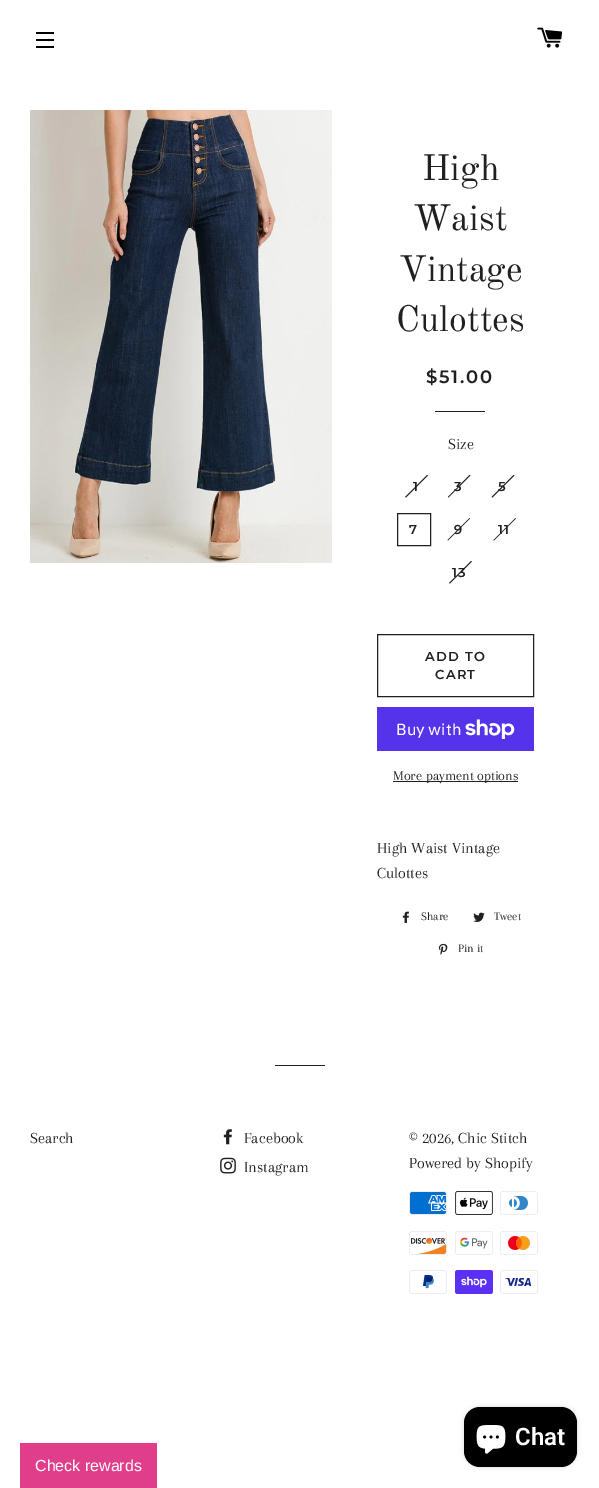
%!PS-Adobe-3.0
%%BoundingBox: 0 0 599 1488
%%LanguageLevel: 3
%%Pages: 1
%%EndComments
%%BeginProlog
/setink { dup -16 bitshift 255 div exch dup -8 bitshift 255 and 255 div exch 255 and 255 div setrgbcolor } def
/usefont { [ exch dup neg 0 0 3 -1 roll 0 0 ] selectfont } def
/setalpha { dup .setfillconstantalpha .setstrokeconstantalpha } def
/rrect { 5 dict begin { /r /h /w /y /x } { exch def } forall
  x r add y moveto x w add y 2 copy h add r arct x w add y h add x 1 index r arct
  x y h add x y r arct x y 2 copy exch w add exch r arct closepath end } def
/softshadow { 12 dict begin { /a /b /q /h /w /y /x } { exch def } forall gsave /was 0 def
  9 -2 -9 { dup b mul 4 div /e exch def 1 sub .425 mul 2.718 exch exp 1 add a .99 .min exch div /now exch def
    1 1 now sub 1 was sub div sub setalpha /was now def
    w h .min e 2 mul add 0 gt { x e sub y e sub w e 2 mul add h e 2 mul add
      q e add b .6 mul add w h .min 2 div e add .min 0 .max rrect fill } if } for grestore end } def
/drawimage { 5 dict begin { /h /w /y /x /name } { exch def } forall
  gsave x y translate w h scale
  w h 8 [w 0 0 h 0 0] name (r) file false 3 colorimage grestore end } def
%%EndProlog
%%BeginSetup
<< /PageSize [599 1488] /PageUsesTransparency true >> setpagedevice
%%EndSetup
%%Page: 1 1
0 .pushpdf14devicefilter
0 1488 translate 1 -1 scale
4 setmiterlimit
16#FFFFFF setink
0 0 599 1488 rectfill
[
    [36 32 18 2 16#000000]
    [36 39 18 2 16#000000]
    [36 46 18 2 16#000000]
] { aload pop setink rectfill } forall
(img1.raw) 537 27 26 21 drawimage
(img2.raw) 30 110 302 453 drawimage
/OldStandardTT-Regular 36 usefont
16#1F2021 setink
[
    [(High) 422 180]
    [(Waist) 413 230]
    [(Vintage) 399 281]
    [(Culottes) 396 331]
] { aload pop moveto show } forall
/Montserrat-SemiBold 18 usefont
426 383 moveto 1.75 0 ($51.00) ashow
435 411 50 1 rectfill
/Arapey-Regular 16 usefont
448 449 moveto (Size) show
427 475 moveto 428 475.5 lineto 406 497.5 lineto 405 497 lineto closepath fill
/Montserrat-SemiBold 13 usefont
413 491 moveto 1.25 0 (1) ashow
469.5 475 moveto 470.5 475.5 lineto 448.5 497.5 lineto 448 497 lineto closepath fill
454 491 moveto 1.25 0 (3) ashow
513.5 475 moveto 514.5 475.5 lineto 492.5 497.5 lineto 491.5 497 lineto closepath fill
498 491 moveto 1.25 0 (5) ashow
397.5 513.5 33 32 rectstroke
409 534 moveto 1.25 0 (7) ashow
469.5 518 moveto 470 518.5 lineto 448 540.5 lineto 447.5 540 lineto closepath fill
454 534 moveto 1.25 0 (9) ashow
515.5 518 moveto 516 518.5 lineto 494 540.5 lineto 493.5 540 lineto closepath fill
498 534 moveto 1.25 0 (11) ashow
471 561 moveto 472 561.5 lineto 450 583.5 lineto 449 583 lineto closepath fill
452 577 moveto 1.25 0 (13) ashow
377.5 634.5 156 62 rectstroke
425 661 moveto 1.25 0 (ADD TO) ashow
435 679 moveto 1.25 0 (CART) ashow
16#5433EB setink
377 707 157 44 rectfill
/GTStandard-Regular 16 usefont
16#FFFFFF setink
396 735 moveto (Buy with) show
(img3.raw) 465 719 50 20 drawimage
16#1F2021 setink
393 781 125 1 rectfill
/Arapey-Regular 14 usefont
393 780 moveto (More payment options) show
/Arapey-Regular 16 usefont
377 853 moveto (High Waist Vintage) show
377 878 moveto (Culottes) show
(img4.raw) 402 911 7 12 drawimage
/Arapey-Regular 12 usefont
421 920 moveto (Share) show
(img5.raw) 473 912 12 10 drawimage
494 920 moveto (Tweet) show
(img6.raw) 438 943 10 12 drawimage
458 952 moveto (Pin it) show
275 1065 50 1 rectfill
/Arapey-Regular 16 usefont
30 1143 moveto (Search) show
(img7.raw) 223 1129 9 16 drawimage
244 1143 moveto (Facebook) show
(img8.raw) 220 1157 16 17 drawimage
[
    [(Instagram) 244 1172]
    [(© 2026, Chic Stitch) 409 1143]
    [(Powered by Shopify) 409 1168]
] { aload pop moveto show } forall
(img9.raw) 409 1191 38 24 drawimage
(img10.raw) 455 1191 38 24 drawimage
(img11.raw) 500 1191 38 24 drawimage
(img12.raw) 409 1231 38 24 drawimage
(img13.raw) 455 1231 38 24 drawimage
(img14.raw) 500 1231 38 24 drawimage
(img15.raw) 409 1270 38 24 drawimage
(img16.raw) 455 1270 38 24 drawimage
(img17.raw) 500 1270 38 24 drawimage
16#000000 setink
464 1407 113 60 16 2.5 0.15 softshadow
464 1407 113 60 16 rrect fill
(img18.raw) 476 1425 30 29 drawimage
/Roboto-SemiBold 24 usefont
16#FFFFFF setink
515 1445 moveto (Chat) show
16#E03D8B setink
20 1443 137 45 rectfill
/LiberationSans-Regular 16 usefont
16#FFFFFF setink
35 1471 moveto (Check rewards) show
.poppdf14devicefilter showpage
%%EOF
